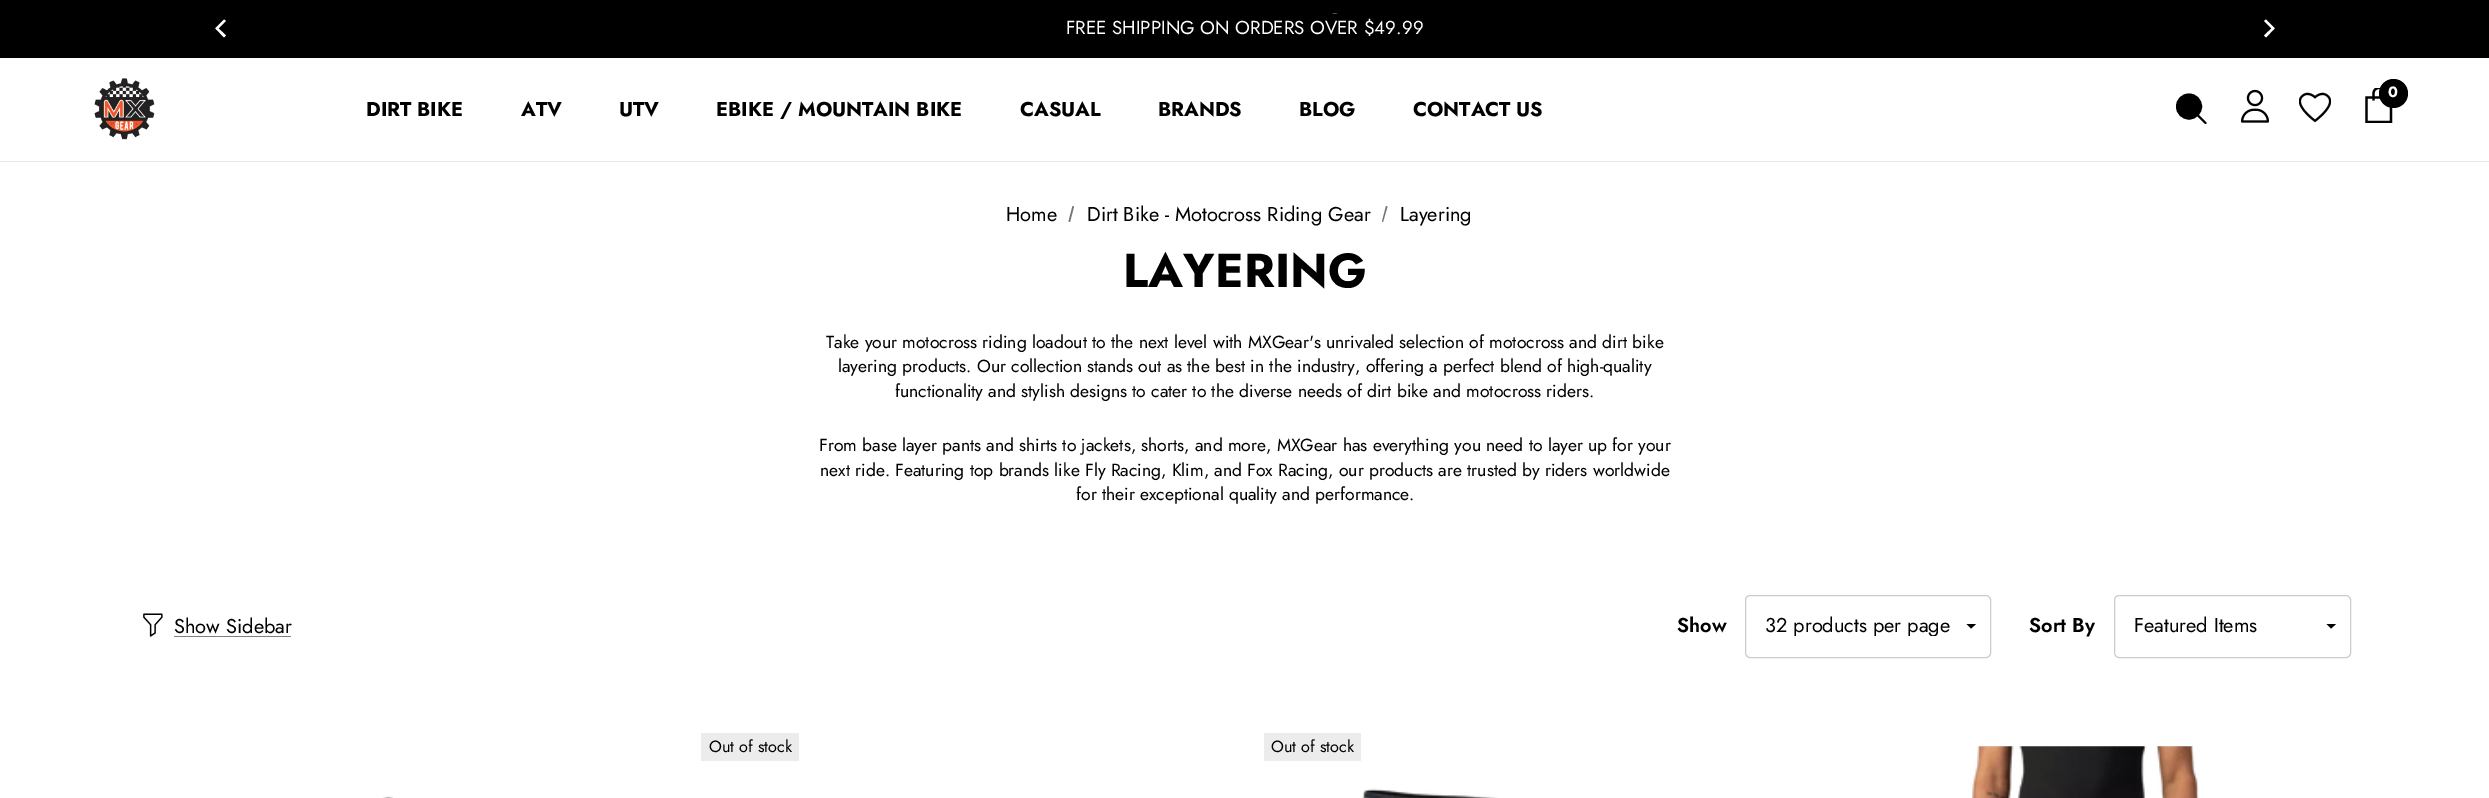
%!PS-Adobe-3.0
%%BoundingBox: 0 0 2489 798
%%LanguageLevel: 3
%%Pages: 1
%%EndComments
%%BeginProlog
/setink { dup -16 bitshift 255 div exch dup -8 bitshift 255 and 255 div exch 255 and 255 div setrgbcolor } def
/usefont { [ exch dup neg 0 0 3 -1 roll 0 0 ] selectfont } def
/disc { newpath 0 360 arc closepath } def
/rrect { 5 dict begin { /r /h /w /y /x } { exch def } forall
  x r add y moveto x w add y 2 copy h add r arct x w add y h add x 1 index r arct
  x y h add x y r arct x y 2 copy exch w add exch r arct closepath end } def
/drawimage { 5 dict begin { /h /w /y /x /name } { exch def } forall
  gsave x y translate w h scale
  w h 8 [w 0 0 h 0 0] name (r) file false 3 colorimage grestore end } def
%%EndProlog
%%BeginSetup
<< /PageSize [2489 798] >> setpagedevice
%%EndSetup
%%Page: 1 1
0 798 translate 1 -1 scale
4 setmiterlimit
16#FFFFFF setink
0 0 2489 798 rectfill
16#000000 setink
0 0 2489 58 rectfill
16#FFFFFF setink
226 21 moveto 217 30 lineto 215.5 28 lineto 224 19.5 lineto closepath fill
224 37.5 moveto 215.5 28.5 lineto 217 27 lineto 226 35.5 lineto closepath fill
(img1.raw) 1332 13 6 1 drawimage
/Jost-Regular 18.75 usefont
1066 34 moveto (FREE SHIPPING ON ORDERS OVER $49.99) show
2266 19.5 moveto 2274.5 28 lineto 2273 30 lineto 2264 21 lineto closepath fill
2264 35.5 moveto 2273 27 lineto 2274.5 28.5 lineto 2266 37.5 lineto closepath fill
16#E6E6E6 setink
0 161 2489 1 rectfill
(img2.raw) 94 78 61 62 drawimage
16#000000 setink
2189 106.5 12 disc gsave fill grestore
2 setlinewidth
stroke
1 setlinecap
1 setlinejoin
2198.5 116 moveto 2205.5 123 lineto stroke
(img3.raw) 2240 89 30 34 drawimage
(img4.raw) 2299 92 32 31 drawimage
gsave
2361 88 35 35 rectclip
2.2 setlinewidth
0 setlinecap
0 setlinejoin
2385.5 97.5 moveto 2391 97.5 lineto 2391 122 lineto 2366.5 122 lineto 2366.5 97.5 lineto 2372 97.5 lineto closepath 2373.5 100.5 moveto 2373.5 93.5 lineto 2373.5 90.5 2375.5 88 2379 88 curveto 2382 88 2384 90.5 2384 93.5 curveto 2384 100.5 lineto stroke
grestore
2393.5 93.5 14.5 disc fill
/Jost-Bold 15 usefont
16#FFFFFF setink
2388 97 moveto (0) show
/Jost-Bold 20 usefont
16#000000 setink
[
    [(DIRT BIKE) 366 116]
    [(ATV) 521 116]
    [(UTV) 619 116]
    [(EBIKE / MOUNTAIN BIKE) 716 116]
    [(CASUAL) 1020 116]
    [(BRANDS) 1158 116]
    [(BLOG) 1299 116]
    [(CONTACT US) 1413 116]
] { aload pop moveto show } forall
/Jost-Regular 20 usefont
1006 221 moveto (Home) show
16#757575 setink
1072.5 206 moveto 1074 206.5 lineto 1070 222 lineto 1068.5 221.5 lineto closepath fill
16#000000 setink
1087 221 moveto (Dirt Bike - Motocross Riding Gear) show
16#757575 setink
1386 206 moveto 1387.5 206.5 lineto 1383 222 lineto 1382 221.5 lineto closepath fill
16#000000 setink
1400 221 moveto (Layering) show
/Jost-Bold 47.5 usefont
1123 287 moveto 0.25 0 (LAYERING) ashow
/Jost-Regular 17.5 usefont
[
    [(Take your motocross riding loadout to the next level with MXGear's unrivaled selection of motocross and dirt bike) 826 348]
    [(layering products. Our collection stands out as the best in the industry, offering a perfect blend of high-quality) 838 372]
    [(functionality and stylish designs to cater to the diverse needs of dirt bike and motocross riders.) 895 397]
    [(From base layer pants and shirts to jackets, shorts, and more, MXGear has everything you need to layer up for your) 819 451]
    [(next ride. Featuring top brands like Fly Racing, Klim, and Fox Racing, our products are trusted by riders worldwide) 820 476]
    [(for their exceptional quality and performance.) 1076 500]
] { aload pop moveto show } forall
(img5.raw) 143 613 20 24 drawimage
16#7F7F7F setink
174 636 117 1 rectfill
/Jost-Regular 20 usefont
16#000000 setink
174 633 moveto (Show Sidebar) show
/Jost-SemiBold 20 usefont
1677 632 moveto (Show) show
1976 624 moveto 1971 628.5 lineto 1966.5 624 lineto closepath fill
16#CCCCCC setink
1 setlinewidth
0 setlinecap
0 setlinejoin
1745.5 595.5 245 62 4.5 rrect stroke
gsave
1765 616 188 20 rectclip
/Jost-Regular 20 usefont
16#000000 setink
1765 632 moveto (32 products per page) show
grestore
16#000000 setink
2029 632 moveto (Sort By) show
2336 624 moveto 2331 628.5 lineto 2326.5 624 lineto closepath fill
16#CCCCCC setink
2114.5 595.5 236 62 4.5 rrect stroke
/Jost-Regular 20 usefont
16#000000 setink
2134 632 moveto (Featured Items) show
(img6.raw) 382 796 12 2 drawimage
16#ECECEC setink
701 733 98 28 rectfill
/Jost-Regular 16.25 usefont
16#000000 setink
709 752 moveto (Out of stock) show
16#ECECEC setink
1264 733 97 28 rectfill
16#000000 setink
1271 752 moveto (Out of stock) show
(img7.raw) 1362 788 135 10 drawimage
(img8.raw) 1972 746 227 52 drawimage
showpage
%%EOF
